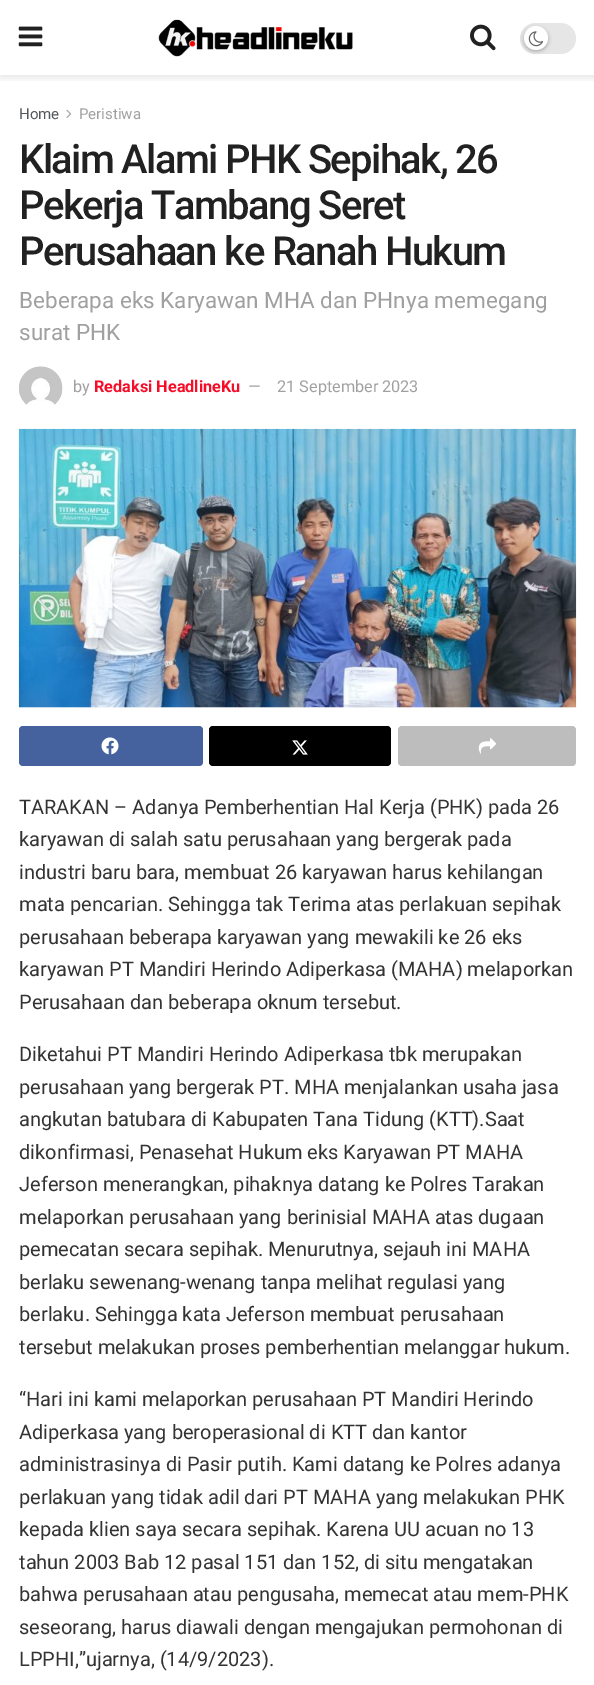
%!PS-Adobe-3.0
%%BoundingBox: 0 0 594 1685
%%LanguageLevel: 3
%%Pages: 1
%%EndComments
%%BeginProlog
/setink { dup -16 bitshift 255 div exch dup -8 bitshift 255 and 255 div exch 255 and 255 div setrgbcolor } def
/usefont { [ exch dup neg 0 0 3 -1 roll 0 0 ] selectfont } def
/setalpha { dup .setfillconstantalpha .setstrokeconstantalpha } def
/disc { newpath 0 360 arc closepath } def
/rrect { 5 dict begin { /r /h /w /y /x } { exch def } forall
  x r add y moveto x w add y 2 copy h add r arct x w add y h add x 1 index r arct
  x y h add x y r arct x y 2 copy exch w add exch r arct closepath end } def
/softshadow { 12 dict begin { /a /b /q /h /w /y /x } { exch def } forall gsave /was 0 def
  9 -2 -9 { dup b mul 4 div /e exch def 1 sub .425 mul 2.718 exch exp 1 add a .99 .min exch div /now exch def
    1 1 now sub 1 was sub div sub setalpha /was now def
    w h .min e 2 mul add 0 gt { x e sub y e sub w e 2 mul add h e 2 mul add
      q e add b .6 mul add w h .min 2 div e add .min 0 .max rrect fill } if } for grestore end } def
/drawimage { 5 dict begin { /h /w /y /x /name } { exch def } forall
  gsave x y translate w h scale
  w h 8 [w 0 0 h 0 0] name (r) file false 3 colorimage grestore end } def
%%EndProlog
%%BeginSetup
<< /PageSize [594 1685] /PageUsesTransparency true >> setpagedevice
%%EndSetup
%%Page: 1 1
0 .pushpdf14devicefilter
0 1685 translate 1 -1 scale
4 setmiterlimit
16#FFFFFF setink
0 0 594 1685 rectfill
gsave
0 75 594 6 rectclip
16#000000 setink
0 3 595 75 0 4 0.1 softshadow
grestore
(img1.raw) 18 26 25 21 drawimage
(img2.raw) 158 19 195 38 drawimage
(img3.raw) 470 24 26 27 drawimage
16#E6E6E6 setink
520 23 56 31 15.5 rrect fill
16#000000 setink
524 28 24 23 11.5 2 0.3 softshadow
16#FFFFFF setink
536 38 12 disc fill
(img4.raw) 528 31 16 16 drawimage
/Roboto-Regular 15 usefont
16#53585C setink
19 119 moveto (Home) show
(img5.raw) 66 109 6 9 drawimage
16#A0A0A0 setink
79 119 moveto (Peristiwa) show
/Roboto-Medium 40 usefont
16#212121 setink
19 173 moveto -1.6 0 (Klaim Alami PHK Sepihak, 26) ashow
19 219 moveto -1.6 0 (Pekerja Tambang Seret) ashow
19 265 moveto -1.6 0 (Perusahaan ke Ranah Hukum) ashow
/Roboto-Regular 22.5 usefont
16#A0A0A0 setink
19 308 moveto (Beberapa eks Karyawan MHA dan PHnya memegang) show
19 340 moveto (surat PHK) show
(img6.raw) 18 366 45 39 drawimage
/Roboto-Regular 16.25 usefont
73 392 moveto (by) show
/Roboto-Bold 16.25 usefont
16#F70D28 setink
94 392 moveto (Redaksi HeadlineKu) show
/Roboto-Regular 16.25 usefont
16#A0A0A0 setink
248 392 moveto (—) show
277 392 moveto (21 September 2023) show
16#F7F7F7 setink
19 707 557 1 rectfill
(img7.raw) 18 428 559 280 drawimage
16#45629F setink
19 726 184 40 4 rrect fill
(img8.raw) 101 737 18 18 drawimage
16#000000 setink
209 726 182 40 4 rrect fill
(img9.raw) 292 740 16 15 drawimage
16#BDBDBD setink
398 726 178 40 4 rrect fill
(img10.raw) 478 738 19 16 drawimage
/Roboto-Regular 20 usefont
16#333333 setink
[
    [(TARAKAN – Adanya Pemberhentian Hal Kerja \(PHK\) pada 26) 19 814]
    [(karyawan di salah satu perusahaan yang bergerak pada) 19 846]
    [(industri baru bara, membuat 26 karyawan harus kehilangan) 19 879]
    [(mata pencarian. Sehingga tak Terima atas perlakuan sepihak) 19 911]
    [(perusahaan beberapa karyawan yang mewakili ke 26 eks) 19 944]
    [(karyawan PT Mandiri Herindo Adiperkasa \(MAHA\) melaporkan) 19 976]
    [(Perusahaan dan beberapa oknum tersebut.) 19 1009]
    [(Diketahui PT Mandiri Herindo Adiperkasa tbk merupakan) 19 1061]
    [(perusahaan yang bergerak PT. MHA menjalankan usaha jasa) 19 1094]
    [(angkutan batubara di Kabupaten Tana Tidung \(KTT\).Saat) 19 1126]
    [(dikonfirmasi, Penasehat Hukum eks Karyawan PT MAHA) 19 1159]
    [(Jeferson menerangkan, pihaknya datang ke Polres Tarakan) 19 1191]
    [(melaporkan perusahaan yang berinisial MAHA atas dugaan) 19 1224]
    [(pemecatan secara sepihak. Menurutnya, sejauh ini MAHA) 19 1256]
    [(berlaku sewenang-wenang tanpa melihat regulasi yang) 19 1289]
    [(berlaku. Sehingga kata Jeferson membuat perusahaan) 19 1321]
    [(tersebut melakukan proses pemberhentian melanggar hukum.) 19 1354]
    [(“Hari ini kami melaporkan perusahaan PT Mandiri Herindo) 19 1406]
    [(Adiperkasa yang beroperasional di KTT dan kantor) 19 1439]
    [(administrasinya di Pasir putih. Kami datang ke Polres adanya) 19 1471]
    [(perlakuan yang tidak adil dari PT MAHA yang melakukan PHK) 19 1504]
    [(kepada klien saya secara sepihak. Karena UU acuan no 13) 19 1536]
    [(tahun 2003 Bab 12 pasal 151 dan 152, di situ mengatakan) 19 1569]
    [(bahwa perusahaan atau pengusaha, memecat atau mem-PHK) 19 1601]
    [(seseorang, harus diawali dengan mengajukan permohonan di) 19 1634]
    [(LPPHI,”ujarnya, \(14/9/2023\).) 19 1666]
] { aload pop moveto show } forall
.poppdf14devicefilter showpage
%%EOF
